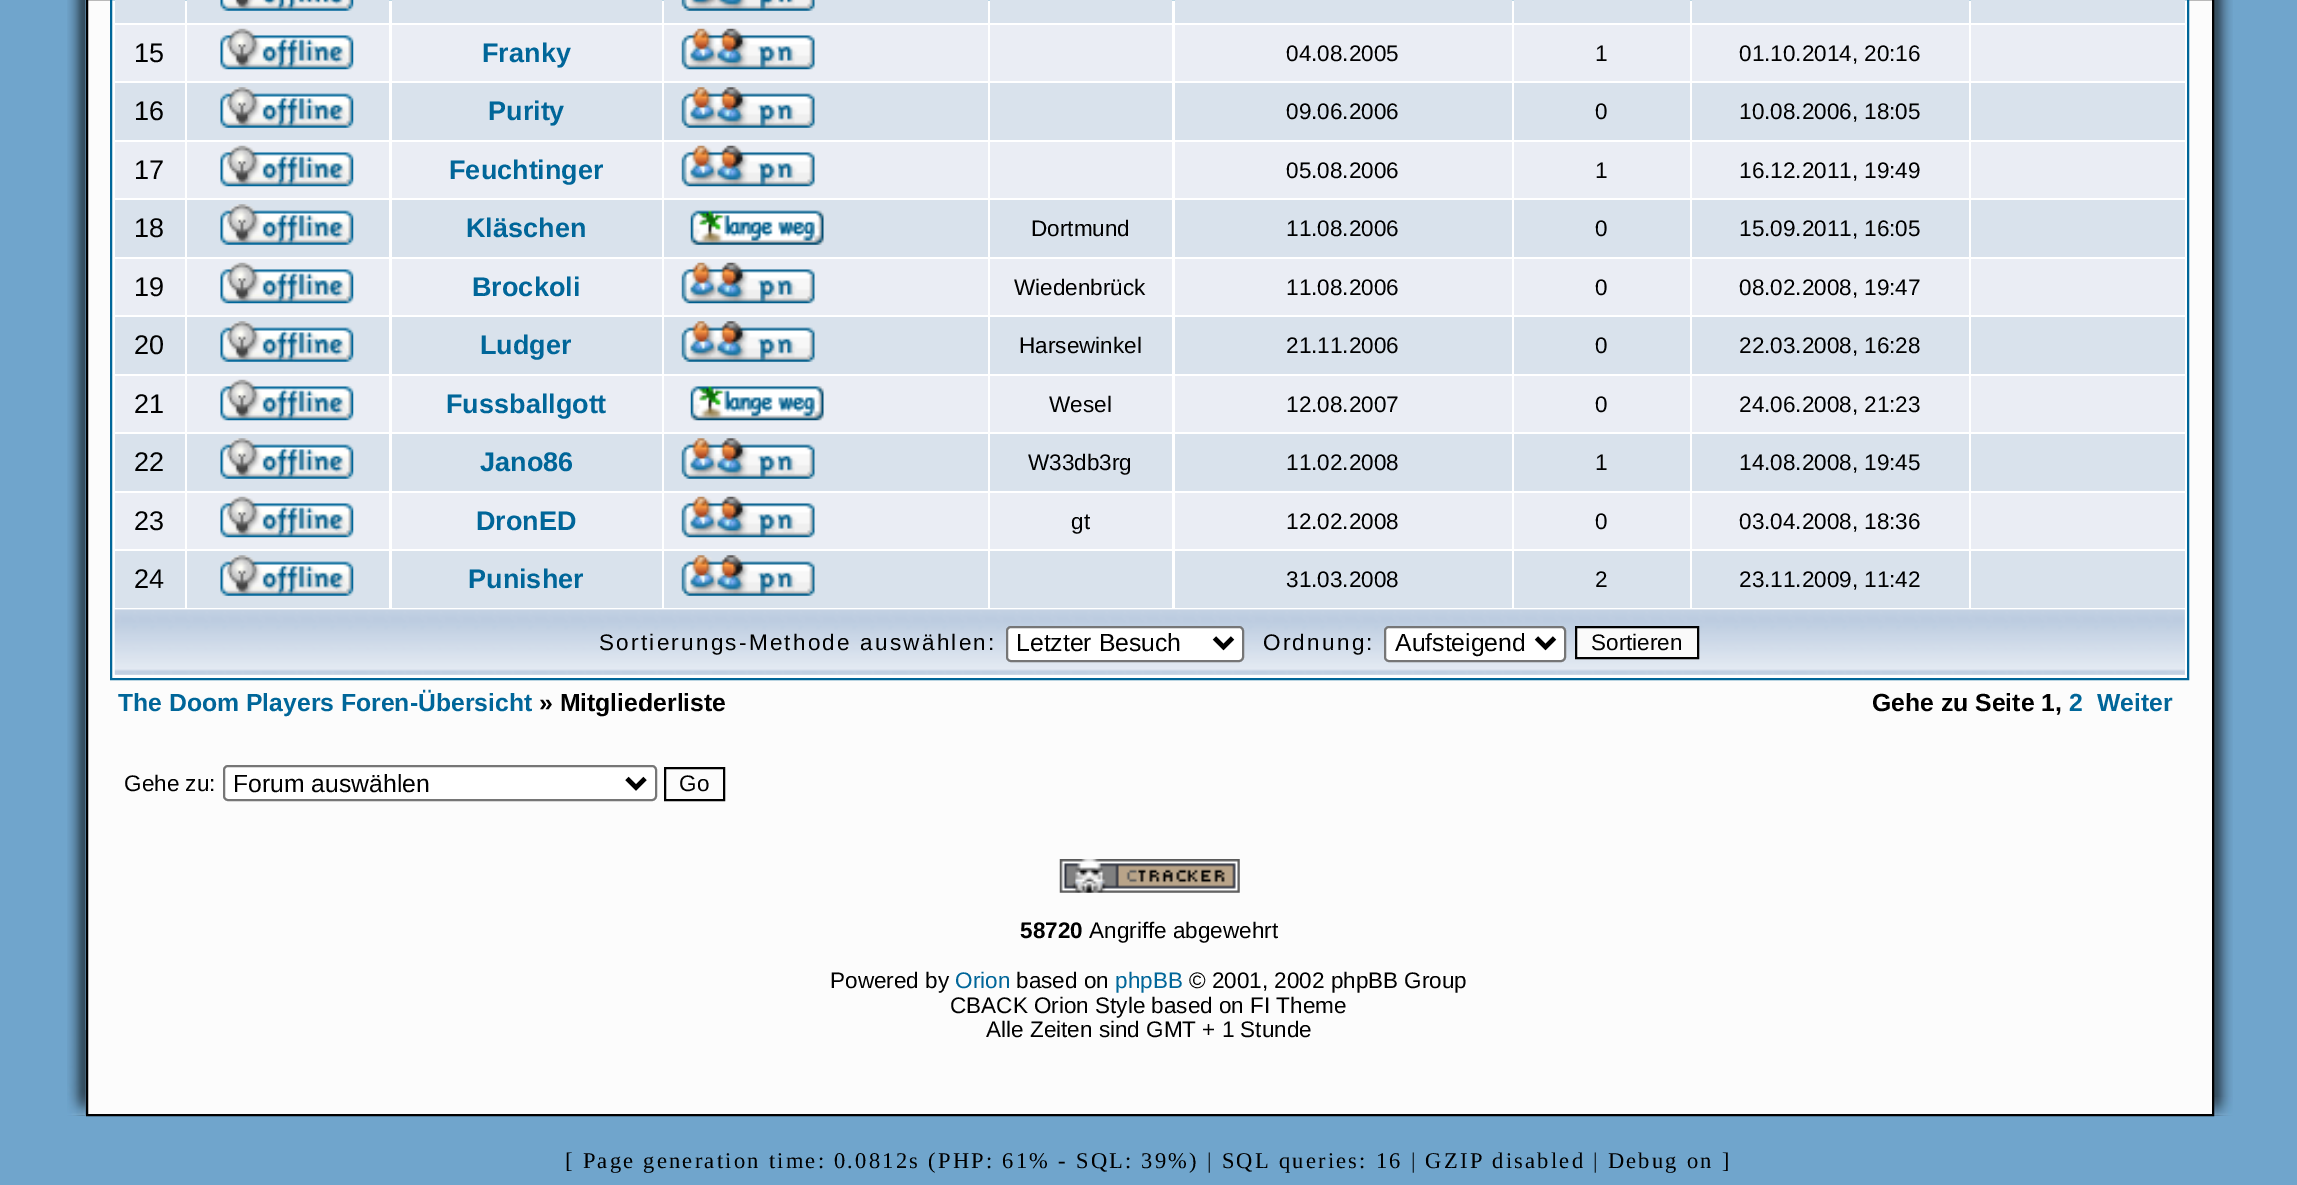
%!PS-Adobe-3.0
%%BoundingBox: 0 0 2297 1185
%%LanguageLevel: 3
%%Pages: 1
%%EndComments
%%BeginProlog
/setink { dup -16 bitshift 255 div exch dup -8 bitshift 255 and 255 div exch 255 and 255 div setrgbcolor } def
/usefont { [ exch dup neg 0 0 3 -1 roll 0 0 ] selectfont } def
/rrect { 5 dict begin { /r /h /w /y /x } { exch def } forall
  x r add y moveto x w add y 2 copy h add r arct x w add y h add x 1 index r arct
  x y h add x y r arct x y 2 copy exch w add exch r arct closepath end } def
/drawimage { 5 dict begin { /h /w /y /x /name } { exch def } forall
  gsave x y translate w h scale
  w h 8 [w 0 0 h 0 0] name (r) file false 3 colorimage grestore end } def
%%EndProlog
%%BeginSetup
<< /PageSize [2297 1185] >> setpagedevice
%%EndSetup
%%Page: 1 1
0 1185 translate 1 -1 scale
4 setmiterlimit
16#70A5CC setink
0 0 2297 1185 rectfill
(img1.raw) 67 0 19 1116 drawimage
(img2.raw) 67 1030 19 86 drawimage
(img3.raw) 2214 0 19 1116 drawimage
(img4.raw) 2214 1097 19 19 drawimage
16#FCFCFC setink
87 -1 moveto 2213 -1 lineto 2213 1115 lineto 87 1115 lineto closepath gsave fill grestore
16#000000 setink
2 setlinewidth
stroke
16#FFFFFF setink
111 -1 moveto 2188 -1 lineto 2188 679 lineto 111 679 lineto closepath gsave fill grestore
16#006699 setink
stroke
16#D9E2EC setink
115 0 70 23 rectfill
187 0 202 23 rectfill
(img5.raw) 220 0 134 11 drawimage
392 0 270 23 rectfill
664 0 324 23 rectfill
(img6.raw) 681 0 134 11 drawimage
[
    [990 0 182 23 16#D9E2EC]
    [1175 0 337 23 16#D9E2EC]
    [1514 0 176 23 16#D9E2EC]
    [1692 0 277 23 16#D9E2EC]
    [1971 0 214 23 16#D9E2EC]
    [115 25 70 56 16#EAEDF4]
] { aload pop setink rectfill } forall
/LiberationSans-Regular 27 usefont
16#000000 setink
134 62 moveto (15) show
16#EAEDF4 setink
187 25 202 56 rectfill
(img7.raw) 220 28 134 42 drawimage
392 25 270 56 rectfill
/LiberationSans-Bold 27 usefont
16#006699 setink
482 62 moveto (Franky) show
16#EAEDF4 setink
664 25 324 56 rectfill
(img8.raw) 681 28 134 42 drawimage
990 25 182 56 rectfill
1175 25 337 56 rectfill
/LiberationSans-Regular 22.5 usefont
16#000000 setink
1286 61 moveto (04.08.2005) show
16#EAEDF4 setink
1514 25 176 56 rectfill
16#000000 setink
1595 61 moveto (1) show
16#EAEDF4 setink
1692 25 277 56 rectfill
16#000000 setink
1739 61 moveto (01.10.2014, 20:16) show
16#EAEDF4 setink
1971 25 214 56 rectfill
16#D9E2EC setink
115 83 70 57 rectfill
/LiberationSans-Regular 27 usefont
16#000000 setink
134 120 moveto (16) show
16#D9E2EC setink
187 83 202 57 rectfill
(img9.raw) 220 87 134 41 drawimage
392 83 270 57 rectfill
/LiberationSans-Bold 27 usefont
16#006699 setink
488 120 moveto (Purity) show
16#D9E2EC setink
664 83 324 57 rectfill
(img10.raw) 681 87 134 41 drawimage
990 83 182 57 rectfill
1175 83 337 57 rectfill
/LiberationSans-Regular 22.5 usefont
16#000000 setink
1286 119 moveto (09.06.2006) show
16#D9E2EC setink
1514 83 176 57 rectfill
16#000000 setink
1595 119 moveto (0) show
16#D9E2EC setink
1692 83 277 57 rectfill
16#000000 setink
1739 119 moveto (10.08.2006, 18:05) show
16#D9E2EC setink
1971 83 214 57 rectfill
16#EAEDF4 setink
115 142 70 56 rectfill
/LiberationSans-Regular 27 usefont
16#000000 setink
134 179 moveto (17) show
16#EAEDF4 setink
187 142 202 56 rectfill
(img7.raw) 220 145 134 42 drawimage
392 142 270 56 rectfill
/LiberationSans-Bold 27 usefont
16#006699 setink
449 179 moveto (Feuchtinger) show
16#EAEDF4 setink
664 142 324 56 rectfill
(img8.raw) 681 145 134 42 drawimage
990 142 182 56 rectfill
1175 142 337 56 rectfill
/LiberationSans-Regular 22.5 usefont
16#000000 setink
1286 178 moveto (05.08.2006) show
16#EAEDF4 setink
1514 142 176 56 rectfill
16#000000 setink
1595 178 moveto (1) show
16#EAEDF4 setink
1692 142 277 56 rectfill
16#000000 setink
1739 178 moveto (16.12.2011, 19:49) show
16#EAEDF4 setink
1971 142 214 56 rectfill
16#D9E2EC setink
115 200 70 57 rectfill
/LiberationSans-Regular 27 usefont
16#000000 setink
134 237 moveto (18) show
16#D9E2EC setink
187 200 202 57 rectfill
(img11.raw) 220 204 134 41 drawimage
392 200 270 57 rectfill
/LiberationSans-Bold 27 usefont
16#006699 setink
466 237 moveto (Kläschen) show
16#D9E2EC setink
664 200 324 57 rectfill
(img12.raw) 690 210 134 35 drawimage
990 200 182 57 rectfill
/LiberationSans-Regular 22.5 usefont
16#000000 setink
1031 236 moveto (Dortmund) show
16#D9E2EC setink
1175 200 337 57 rectfill
16#000000 setink
1286 236 moveto (11.08.2006) show
16#D9E2EC setink
1514 200 176 57 rectfill
16#000000 setink
1595 236 moveto (0) show
16#D9E2EC setink
1692 200 277 57 rectfill
16#000000 setink
1739 236 moveto (15.09.2011, 16:05) show
16#D9E2EC setink
1971 200 214 57 rectfill
16#EAEDF4 setink
115 259 70 56 rectfill
/LiberationSans-Regular 27 usefont
16#000000 setink
134 296 moveto (19) show
16#EAEDF4 setink
187 259 202 56 rectfill
(img7.raw) 220 262 134 42 drawimage
392 259 270 56 rectfill
/LiberationSans-Bold 27 usefont
16#006699 setink
472 296 moveto (Brockoli) show
16#EAEDF4 setink
664 259 324 56 rectfill
(img8.raw) 681 262 134 42 drawimage
990 259 182 56 rectfill
/LiberationSans-Regular 22.5 usefont
16#000000 setink
1014 295 moveto (Wiedenbrück) show
16#EAEDF4 setink
1175 259 337 56 rectfill
16#000000 setink
1286 295 moveto (11.08.2006) show
16#EAEDF4 setink
1514 259 176 56 rectfill
16#000000 setink
1595 295 moveto (0) show
16#EAEDF4 setink
1692 259 277 56 rectfill
16#000000 setink
1739 295 moveto (08.02.2008, 19:47) show
16#EAEDF4 setink
1971 259 214 56 rectfill
16#D9E2EC setink
115 317 70 57 rectfill
/LiberationSans-Regular 27 usefont
16#000000 setink
134 354 moveto (20) show
16#D9E2EC setink
187 317 202 57 rectfill
(img13.raw) 220 321 134 41 drawimage
392 317 270 57 rectfill
/LiberationSans-Bold 27 usefont
16#006699 setink
480 354 moveto (Ludger) show
16#D9E2EC setink
664 317 324 57 rectfill
(img14.raw) 681 321 134 41 drawimage
990 317 182 57 rectfill
/LiberationSans-Regular 22.5 usefont
16#000000 setink
1019 353 moveto (Harsewinkel) show
16#D9E2EC setink
1175 317 337 57 rectfill
16#000000 setink
1286 353 moveto (21.11.2006) show
16#D9E2EC setink
1514 317 176 57 rectfill
16#000000 setink
1595 353 moveto (0) show
16#D9E2EC setink
1692 317 277 57 rectfill
16#000000 setink
1739 353 moveto (22.03.2008, 16:28) show
16#D9E2EC setink
1971 317 214 57 rectfill
16#EAEDF4 setink
115 376 70 56 rectfill
/LiberationSans-Regular 27 usefont
16#000000 setink
134 413 moveto (21) show
16#EAEDF4 setink
187 376 202 56 rectfill
(img7.raw) 220 379 134 42 drawimage
392 376 270 56 rectfill
/LiberationSans-Bold 27 usefont
16#006699 setink
446 413 moveto (Fussballgott) show
16#EAEDF4 setink
664 376 324 56 rectfill
(img15.raw) 690 386 134 35 drawimage
990 376 182 56 rectfill
/LiberationSans-Regular 22.5 usefont
16#000000 setink
1049 412 moveto (Wesel) show
16#EAEDF4 setink
1175 376 337 56 rectfill
16#000000 setink
1286 412 moveto (12.08.2007) show
16#EAEDF4 setink
1514 376 176 56 rectfill
16#000000 setink
1595 412 moveto (0) show
16#EAEDF4 setink
1692 376 277 56 rectfill
16#000000 setink
1739 412 moveto (24.06.2008, 21:23) show
16#EAEDF4 setink
1971 376 214 56 rectfill
16#D9E2EC setink
115 434 70 57 rectfill
/LiberationSans-Regular 27 usefont
16#000000 setink
134 471 moveto (22) show
16#D9E2EC setink
187 434 202 57 rectfill
(img9.raw) 220 438 134 41 drawimage
392 434 270 57 rectfill
/LiberationSans-Bold 27 usefont
16#006699 setink
480 471 moveto (Jano86) show
16#D9E2EC setink
664 434 324 57 rectfill
(img10.raw) 681 438 134 41 drawimage
990 434 182 57 rectfill
/LiberationSans-Regular 22.5 usefont
16#000000 setink
1028 470 moveto (W33db3rg) show
16#D9E2EC setink
1175 434 337 57 rectfill
16#000000 setink
1286 470 moveto (11.02.2008) show
16#D9E2EC setink
1514 434 176 57 rectfill
16#000000 setink
1595 470 moveto (1) show
16#D9E2EC setink
1692 434 277 57 rectfill
16#000000 setink
1739 470 moveto (14.08.2008, 19:45) show
16#D9E2EC setink
1971 434 214 57 rectfill
16#EAEDF4 setink
115 493 70 56 rectfill
/LiberationSans-Regular 27 usefont
16#000000 setink
134 530 moveto (23) show
16#EAEDF4 setink
187 493 202 56 rectfill
(img7.raw) 220 496 134 42 drawimage
392 493 270 56 rectfill
/LiberationSans-Bold 27 usefont
16#006699 setink
476 530 moveto (DronED) show
16#EAEDF4 setink
664 493 324 56 rectfill
(img8.raw) 681 496 134 42 drawimage
990 493 182 56 rectfill
/LiberationSans-Regular 22.5 usefont
16#000000 setink
1071 529 moveto (gt) show
16#EAEDF4 setink
1175 493 337 56 rectfill
16#000000 setink
1286 529 moveto (12.02.2008) show
16#EAEDF4 setink
1514 493 176 56 rectfill
16#000000 setink
1595 529 moveto (0) show
16#EAEDF4 setink
1692 493 277 56 rectfill
16#000000 setink
1739 529 moveto (03.04.2008, 18:36) show
16#EAEDF4 setink
1971 493 214 56 rectfill
16#D9E2EC setink
115 551 70 57 rectfill
/LiberationSans-Regular 27 usefont
16#000000 setink
134 588 moveto (24) show
16#D9E2EC setink
187 551 202 57 rectfill
(img9.raw) 220 555 134 41 drawimage
392 551 270 57 rectfill
/LiberationSans-Bold 27 usefont
16#006699 setink
468 588 moveto (Punisher) show
16#D9E2EC setink
664 551 324 57 rectfill
(img10.raw) 681 555 134 41 drawimage
990 551 182 57 rectfill
1175 551 337 57 rectfill
/LiberationSans-Regular 22.5 usefont
16#000000 setink
1286 587 moveto (31.03.2008) show
16#D9E2EC setink
1514 551 176 57 rectfill
16#000000 setink
1595 587 moveto (2) show
16#D9E2EC setink
1692 551 277 57 rectfill
16#000000 setink
1739 587 moveto (23.11.2009, 11:42) show
16#D9E2EC setink
1971 551 214 57 rectfill
115 610 2070 65 rectfill
(img16.raw) 114 609 2071 66 drawimage
16#000000 setink
599 650 moveto 2.25 0 (Sortierungs-Methode auswählen:) ashow
16#FFFFFF setink
1007 627 236 34 4 rrect gsave fill grestore
16#767676 setink
stroke
16#000000 setink
4.5 setlinewidth
1214.5 638 moveto 1223.5 647 lineto 1232.5 638 lineto stroke
/LiberationSans-Regular 24.75 usefont
1016 651 moveto (Letzter Besuch) show
/LiberationSans-Regular 22.5 usefont
1263 650 moveto 2.25 0 (Ordnung:) ashow
16#FFFFFF setink
1385 627 180 34 4 rrect gsave fill grestore
16#767676 setink
2 setlinewidth
stroke
16#000000 setink
4.5 setlinewidth
1536.5 638 moveto 1545.5 647 lineto 1554.5 638 lineto stroke
/LiberationSans-Regular 24.75 usefont
1395 651 moveto (Aufsteigend) show
16#FAFAFA setink
1576 627 moveto 1698 627 lineto 1698 658 lineto 1576 658 lineto closepath gsave fill grestore
16#000000 setink
2 setlinewidth
stroke
/LiberationSans-Regular 22.5 usefont
1591 650 moveto (Sortieren) show
/LiberationSans-Bold 24.75 usefont
16#006699 setink
118 711 moveto (The Doom Players Foren-Übersicht) show
16#000000 setink
539 711 moveto (» Mitgliederliste) show
1872 711 moveto (Gehe zu Seite 1,) show
16#006699 setink
2069 711 moveto (2) show
2097 711 moveto (Weiter) show
/LiberationSans-Regular 22.5 usefont
16#000000 setink
124 791 moveto (Gehe zu:) show
16#FFFFFF setink
224 766 432 34 4 rrect gsave fill grestore
16#767676 setink
stroke
16#000000 setink
4.5 setlinewidth
627 778.5 moveto 636 787.5 lineto 645 778.5 lineto stroke
/LiberationSans-Regular 24.75 usefont
233 792 moveto (Forum auswählen) show
2 setlinewidth
665 768 59 32 rectstroke
/LiberationSans-Regular 22.5 usefont
679 791 moveto (Go) show
(img17.raw) 1059 859 181 34 drawimage
/LiberationSans-Bold 22.5 usefont
1020 938 moveto (58720) show
/LiberationSans-Regular 22.5 usefont
1089 938 moveto (Angriffe abgewehrt) show
830 988 moveto (Powered by) show
16#006699 setink
955 988 moveto (Orion) show
16#000000 setink
1016 988 moveto (based on) show
16#006699 setink
1115 988 moveto (phpBB) show
16#000000 setink
[
    [(© 2001, 2002 phpBB Group) 1189 988]
    [(CBACK Orion Style based on FI Theme) 950 1013]
    [(Alle Zeiten sind GMT + 1 Stunde) 986 1037]
] { aload pop moveto show } forall
/LiberationSerif-Regular 22.5 usefont
565 1168 moveto 2.25 0 ([ Page generation time: 0.0812s \(PHP: 61% - SQL: 39%\) | SQL queries: 16 | GZIP disabled | Debug on ]) ashow
showpage
%%EOF
